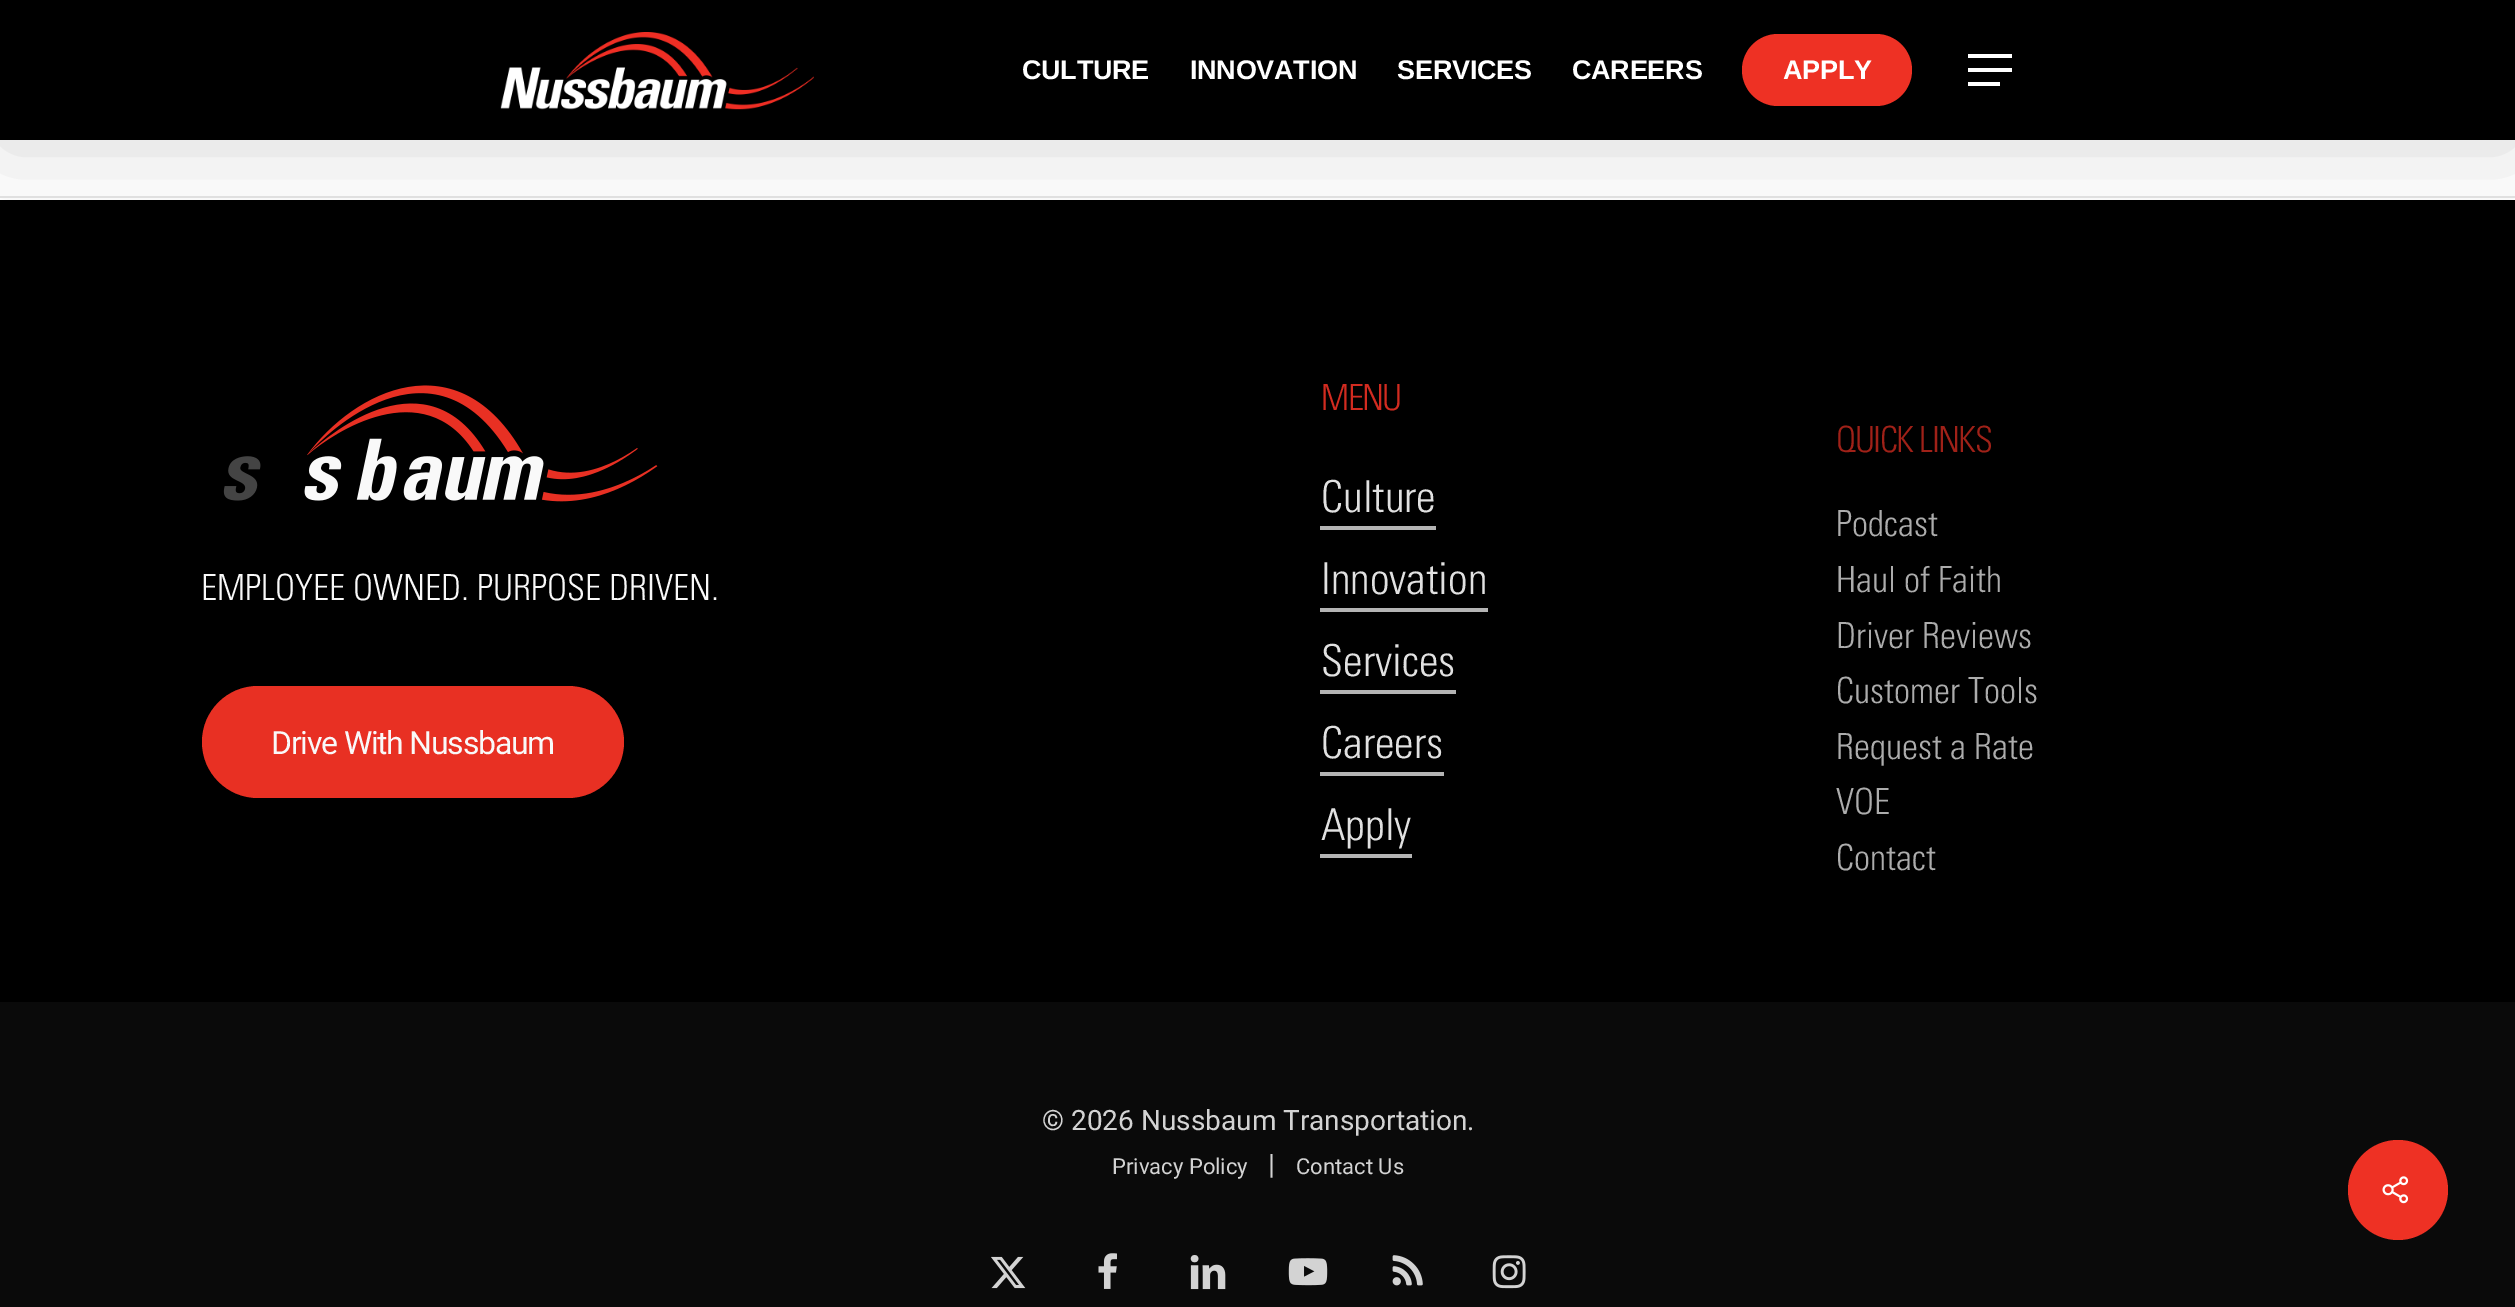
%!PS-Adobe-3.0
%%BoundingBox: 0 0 2515 1307
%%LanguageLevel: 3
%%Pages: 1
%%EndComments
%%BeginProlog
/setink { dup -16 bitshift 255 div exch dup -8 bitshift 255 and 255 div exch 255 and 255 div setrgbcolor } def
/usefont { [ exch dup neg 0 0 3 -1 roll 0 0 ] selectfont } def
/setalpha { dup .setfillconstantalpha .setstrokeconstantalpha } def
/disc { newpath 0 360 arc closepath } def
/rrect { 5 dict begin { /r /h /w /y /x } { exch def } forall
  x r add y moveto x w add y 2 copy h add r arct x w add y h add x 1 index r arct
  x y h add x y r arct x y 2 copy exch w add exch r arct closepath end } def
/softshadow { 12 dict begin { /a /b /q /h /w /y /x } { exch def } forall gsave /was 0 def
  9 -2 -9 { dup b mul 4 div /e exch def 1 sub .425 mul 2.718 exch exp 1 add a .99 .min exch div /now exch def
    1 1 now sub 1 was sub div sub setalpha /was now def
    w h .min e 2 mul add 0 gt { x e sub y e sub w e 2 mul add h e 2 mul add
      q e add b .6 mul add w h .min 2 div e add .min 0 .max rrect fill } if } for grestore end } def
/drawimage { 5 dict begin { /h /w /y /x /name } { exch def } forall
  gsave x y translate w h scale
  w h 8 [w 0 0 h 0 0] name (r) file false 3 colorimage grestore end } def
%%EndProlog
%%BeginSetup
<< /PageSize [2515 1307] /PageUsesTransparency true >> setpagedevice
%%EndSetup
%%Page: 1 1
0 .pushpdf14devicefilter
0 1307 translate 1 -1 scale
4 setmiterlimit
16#FFFFFF setink
0 0 2515 1307 rectfill
16#E6E6E6 setink
0 196 2515 2 rectfill
16#000000 setink
0 200 2515 802 rectfill
0 -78 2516 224 0 45 0.15 softshadow
0 0 2515 140 rectfill
(img1.raw) 500 32 314 78 drawimage
/LiberationSans-Bold 27 usefont
16#FFFFFF setink
1022 79 moveto -0.25 0 (CULTURE) ashow
1190 79 moveto -0.25 0 (INNOVATION) ashow
1397 79 moveto -0.25 0 (SERVICES) ashow
1572 79 moveto -0.25 0 (CAREERS) ashow
16#EE3124 setink
1742 34 170 72 36 rrect fill
16#FFFFFF setink
1783 79 moveto -0.25 0 (APPLY) ashow
[
    [1968 54 44 4 16#FFFFFF]
    [1968 82 32 4 16#FFFFFF]
    [1968 68 44 4 16#FFFFFF]
] { aload pop setink rectfill } forall
(img2.raw) 223 385 435 117 drawimage
/Univers-Light 36 usefont
16#F9F9F9 setink
201 600 moveto (EMPLOYEE OWNED. PURPOSE DRIVEN.) show
16#E83023 setink
202 686 422 112 56 rrect fill
/Roboto-Regular 32 usefont
16#F9F9F9 setink
271 754 moveto -1.25 0 (Drive With Nussbaum) ashow
/Univers-Light 36 usefont
16#D22B20 setink
1321 410 moveto -1.5 0 (MENU) ashow
/Univers-Light 44 usefont
16#E1E1E1 setink
1321 512 moveto (Culture) show
16#B4B4B4 setink
1320 526 116 4 rectfill
16#E1E1E1 setink
1321 594 moveto (Innovation) show
16#B4B4B4 setink
1320 608 168 4 rectfill
16#E1E1E1 setink
1321 676 moveto (Services) show
16#B4B4B4 setink
1320 690 136 4 rectfill
16#E1E1E1 setink
1321 758 moveto (Careers) show
16#B4B4B4 setink
1320 772 124 4 rectfill
16#E1E1E1 setink
1321 840 moveto (Apply) show
16#B4B4B4 setink
1320 854 92 4 rectfill
/Univers-Light 36 usefont
16#A02118 setink
1836 452 moveto -1.5 0 (QUICK LINKS) ashow
16#ACACAC setink
[
    [(Podcast) 1836 536]
    [(Haul of Faith) 1836 592]
    [(Driver Reviews) 1836 648]
    [(Customer Tools) 1836 703]
    [(Request a Rate) 1836 759]
    [(VOE) 1836 814]
    [(Contact) 1836 870]
] { aload pop moveto show } forall
16#0A0A0A setink
0 1002 2515 305 rectfill
/Roboto-Regular 28 usefont
16#D3D3D3 setink
1042 1130 moveto (© 2026 Nussbaum Transportation.) show
/Roboto-Regular 22 usefont
1112 1174 moveto (Privacy Policy) show
/Roboto-Regular 28 usefont
1268 1174 moveto (|) show
/Roboto-Regular 22 usefont
1296 1174 moveto (Contact Us) show
(img3.raw) 991 1256 35 33 drawimage
(img4.raw) 1098 1253 19 36 drawimage
(img5.raw) 1190 1255 36 35 drawimage
(img6.raw) 1288 1258 40 28 drawimage
(img7.raw) 1392 1255 31 31 drawimage
(img8.raw) 1492 1255 34 34 drawimage
16#EE3124 setink
2398 1190 50 disc fill
(img9.raw) 2382 1176 27 28 drawimage
.poppdf14devicefilter showpage
%%EOF
